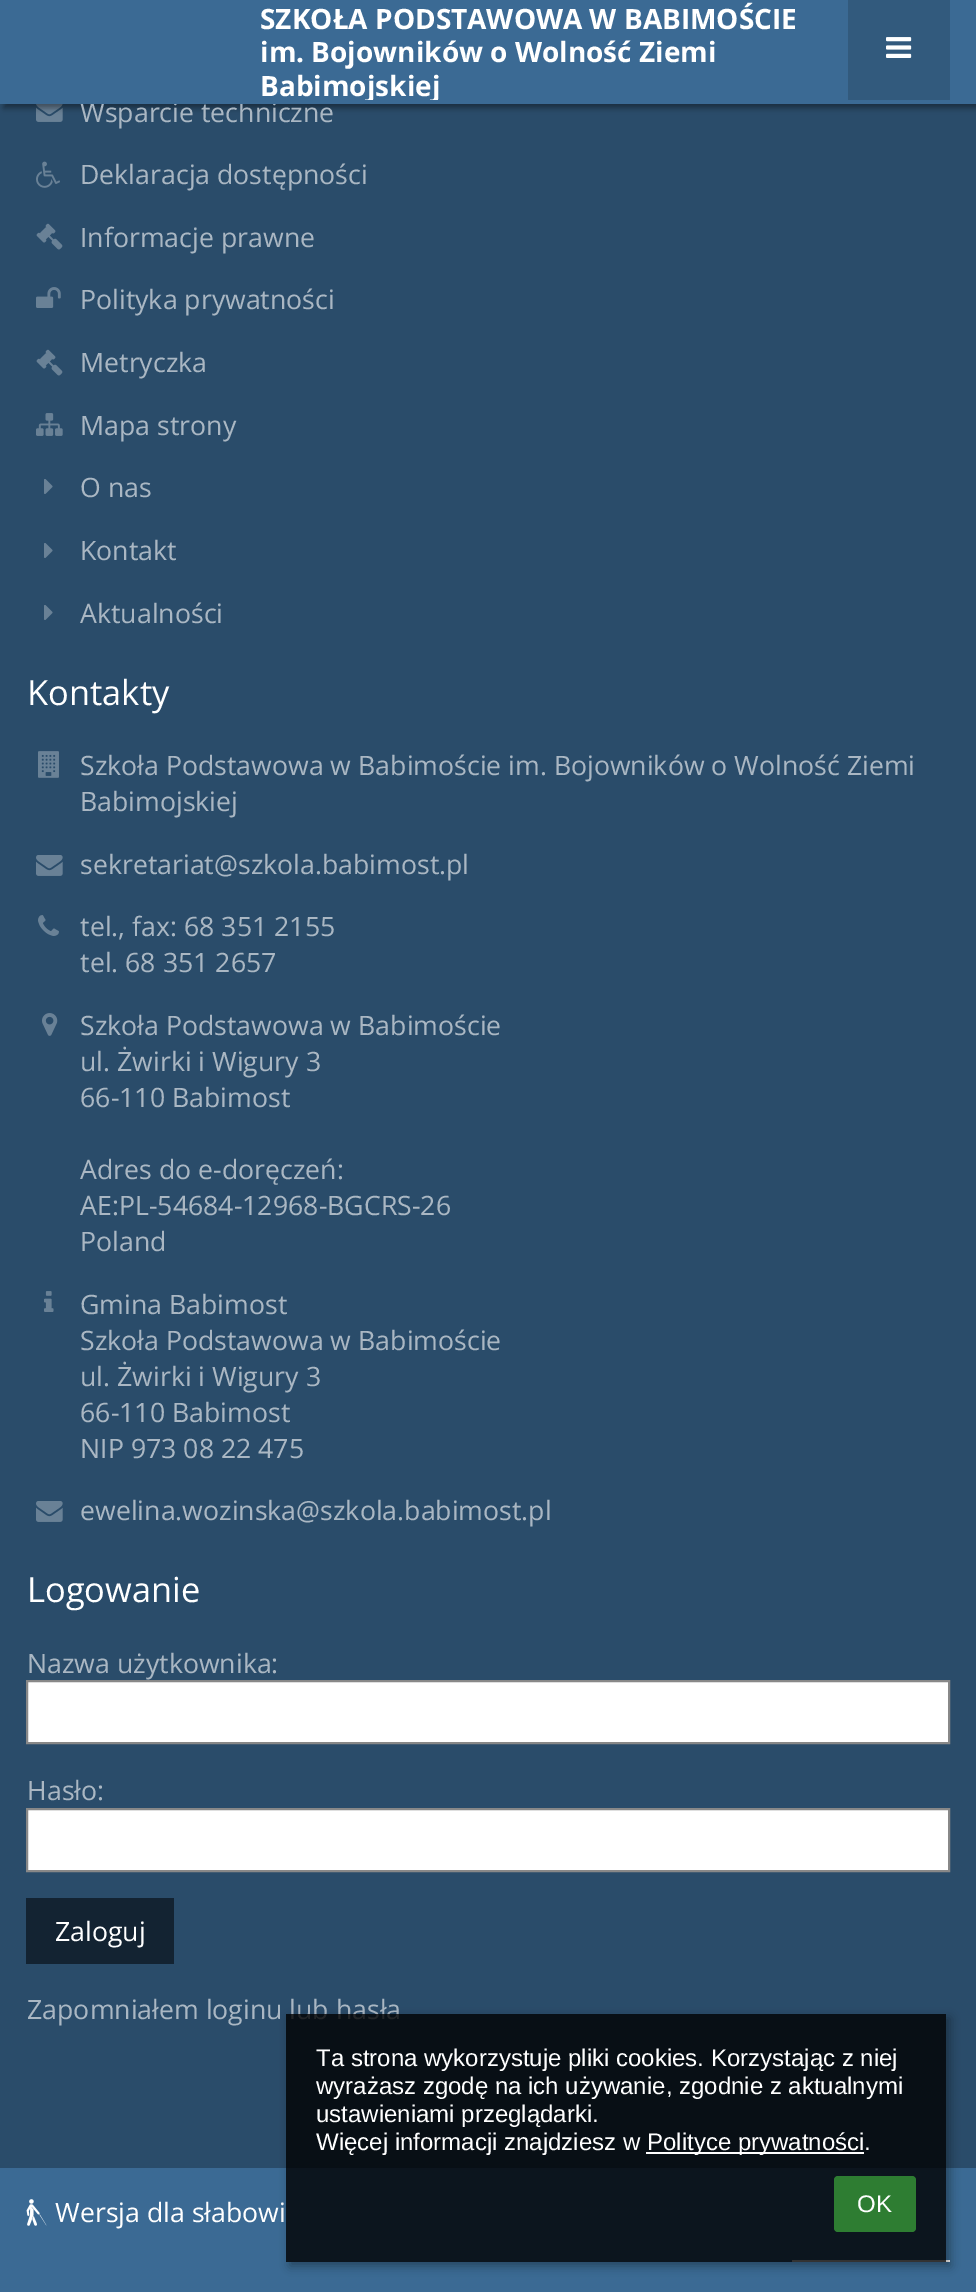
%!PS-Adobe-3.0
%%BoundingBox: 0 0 976 2292
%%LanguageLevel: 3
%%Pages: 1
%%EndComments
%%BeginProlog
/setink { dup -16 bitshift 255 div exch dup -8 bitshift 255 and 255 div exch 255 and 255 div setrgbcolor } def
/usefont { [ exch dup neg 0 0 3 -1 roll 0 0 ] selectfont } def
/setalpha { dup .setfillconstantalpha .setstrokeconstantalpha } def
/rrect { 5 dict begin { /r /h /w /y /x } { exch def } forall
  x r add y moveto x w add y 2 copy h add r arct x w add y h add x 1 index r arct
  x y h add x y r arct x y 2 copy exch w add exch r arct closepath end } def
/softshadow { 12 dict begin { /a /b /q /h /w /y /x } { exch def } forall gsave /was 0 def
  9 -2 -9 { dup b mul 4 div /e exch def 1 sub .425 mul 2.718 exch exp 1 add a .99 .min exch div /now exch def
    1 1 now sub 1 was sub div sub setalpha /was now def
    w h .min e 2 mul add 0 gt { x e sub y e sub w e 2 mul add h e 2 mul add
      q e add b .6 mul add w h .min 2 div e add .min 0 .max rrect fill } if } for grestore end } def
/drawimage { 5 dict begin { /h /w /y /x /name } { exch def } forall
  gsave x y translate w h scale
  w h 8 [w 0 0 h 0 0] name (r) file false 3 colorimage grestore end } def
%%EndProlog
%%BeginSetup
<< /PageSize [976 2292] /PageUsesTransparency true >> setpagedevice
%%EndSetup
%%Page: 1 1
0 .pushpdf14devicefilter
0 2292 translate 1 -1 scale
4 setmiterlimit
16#2A4C6A setink
0 0 976 2292 rectfill
(img2.raw) 36 104 27 18 drawimage
16#000000 setink
4 4 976 104 0 3 0.4 softshadow
/OpenSans-Regular 26.7 usefont
16#AAB7C3 setink
80 122 moveto (Wsparcie techniczne) show
16#3B6A94 setink
0 0 976 104 rectfill
/OpenSans-Bold 28 usefont
16#FFFFFF setink
260 29 moveto (SZKOŁA PODSTAWOWA W BABIMOŚCIE) show
260 62 moveto (im. Bojowników o Wolność Ziemi) show
gsave
230 2 580 98 rectclip
260 96 moveto (Babimojskiej) show
grestore
16#325A7D setink
848 0 102 100 rectfill
(img1.raw) 886 37 26 21 drawimage
(img3.raw) 36 161 24 27 drawimage
/OpenSans-Regular 26.7 usefont
16#AAB7C3 setink
80 184 moveto (Deklaracja dostępności) show
(img4.raw) 36 223 27 27 drawimage
80 247 moveto (Informacje prawne) show
(img5.raw) 36 287 25 21 drawimage
80 309 moveto (Polityka prywatności) show
(img4.raw) 36 349 27 27 drawimage
80 372 moveto (Metryczka) show
(img6.raw) 36 413 27 23 drawimage
80 435 moveto (Mapa strony) show
(img7.raw) 44 479 9 15 drawimage
80 497 moveto (O nas) show
(img7.raw) 44 543 9 15 drawimage
80 560 moveto (Kontakt) show
(img7.raw) 44 605 9 15 drawimage
80 623 moveto (Aktualności) show
/OpenSans-Regular 34.5 usefont
16#FFFFFF setink
27 705 moveto (Kontakty) show
(img8.raw) 38 751 21 27 drawimage
/OpenSans-Regular 26.7 usefont
16#AAB7C3 setink
80 775 moveto (Szkoła Podstawowa w Babimoście im. Bojowników o Wolność Ziemi) show
80 811 moveto (Babimojskiej) show
(img9.raw) 36 855 27 21 drawimage
80 874 moveto (sekretariat@szkola.babimost.pl) show
(img10.raw) 38 915 21 21 drawimage
80 936 moveto (tel., fax: 68 351 2155) show
80 972 moveto (tel. 68 351 2657) show
(img11.raw) 42 1013 16 23 drawimage
[
    [(Szkoła Podstawowa w Babimoście) 80 1035]
    [(ul. Żwirki i Wigury 3) 80 1071]
    [(66-110 Babimost) 80 1107]
    [(Adres do e-doręczeń:) 80 1179]
    [(AE:PL-54684-12968-BGCRS-26) 80 1215]
    [(Poland) 80 1251]
] { aload pop moveto show } forall
(img12.raw) 44 1291 10 21 drawimage
[
    [(Gmina Babimost) 80 1314]
    [(Szkoła Podstawowa w Babimoście) 80 1350]
    [(ul. Żwirki i Wigury 3) 80 1386]
    [(66-110 Babimost) 80 1422]
    [(NIP 973 08 22 475) 80 1458]
] { aload pop moveto show } forall
(img9.raw) 36 1501 27 21 drawimage
80 1520 moveto (ewelina.wozinska@szkola.babimost.pl) show
/OpenSans-Regular 34.5 usefont
16#FFFFFF setink
27 1602 moveto (Logowanie) show
/OpenSans-Regular 26.7 usefont
16#AAB7C3 setink
27 1673 moveto (Nazwa użytkownika:) show
16#FFFFFF setink
27 1681 moveto 949 1681 lineto 949 1743 lineto 27 1743 lineto closepath gsave fill grestore
16#888888 setink
2 setlinewidth
stroke
16#AAB7C3 setink
27 1800 moveto (Hasło:) show
16#FFFFFF setink
27 1809 moveto 949 1809 lineto 949 1871 lineto 27 1871 lineto closepath gsave fill grestore
16#888888 setink
stroke
16#132332 setink
26 1898 148 66 rectfill
16#FFFFFF setink
55 1941 moveto (Zaloguj) show
16#AAB7C3 setink
27 2019 moveto (Zapomniałem loginu lub hasła) show
16#3B6A94 setink
0 2168 976 124 rectfill
(img13.raw) 26 2199 21 27 drawimage
16#FFFFFF setink
55 2222 moveto (Wersja dla słabowi) show
792 2260 158 2 rectfill
gsave
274 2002 moveto 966 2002 lineto 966 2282 lineto 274 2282 lineto closepath 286 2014 moveto 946 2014 lineto 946 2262 lineto 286 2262 lineto closepath eoclip newpath
16#000000 setink
290 2018 660 248 0 5 0.35 softshadow
grestore
0.8 setalpha
16#000000 setink
286 2014 660 248 rectfill
/LiberationSans-Regular 24 usefont
1 setalpha
16#FFFFFF setink
[
    [(Ta strona wykorzystuje pliki cookies. Korzystając z niej) 316 2066]
    [(wyrażasz zgodę na ich używanie, zgodnie z aktualnymi) 316 2094]
    [(ustawieniami przeglądarki.) 316 2122]
    [(Więcej informacji znajdziesz w) 316 2150]
] { aload pop moveto show } forall
646 2152 218 2 rectfill
647 2150 moveto (Polityce prywatności.) show
16#2E7D32 setink
834 2176 82 56 4 rrect fill
16#FFFFFF setink
857 2212 moveto (OK) show
.poppdf14devicefilter showpage
%%EOF
